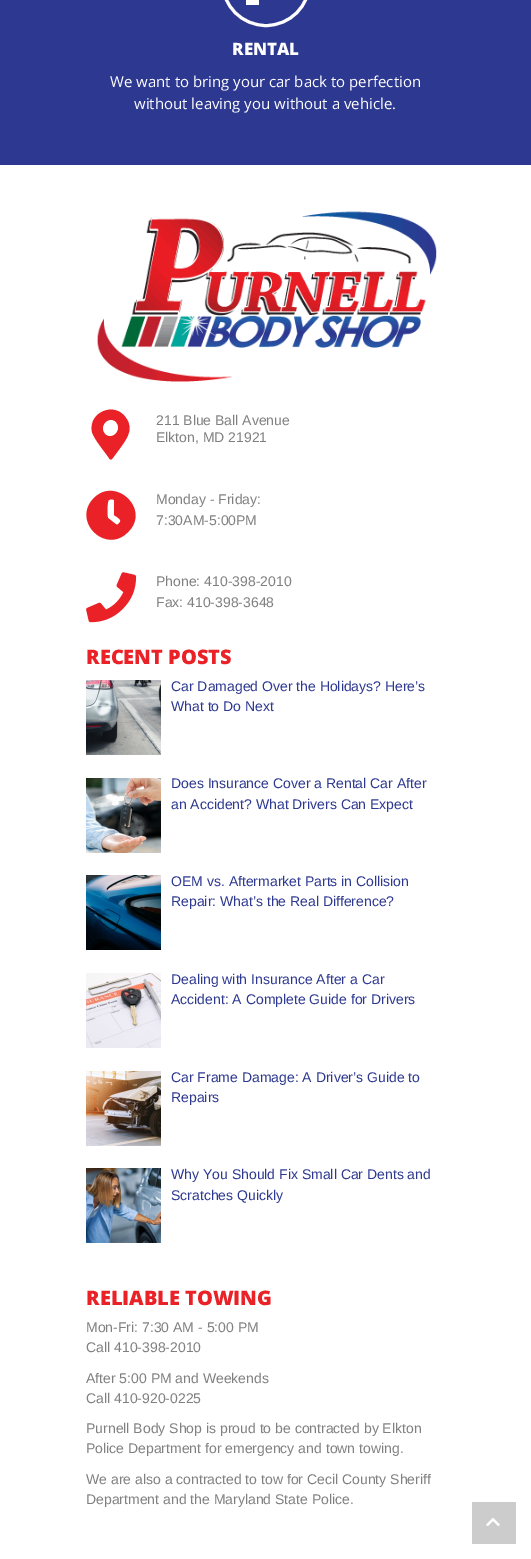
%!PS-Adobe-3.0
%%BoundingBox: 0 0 531 1559
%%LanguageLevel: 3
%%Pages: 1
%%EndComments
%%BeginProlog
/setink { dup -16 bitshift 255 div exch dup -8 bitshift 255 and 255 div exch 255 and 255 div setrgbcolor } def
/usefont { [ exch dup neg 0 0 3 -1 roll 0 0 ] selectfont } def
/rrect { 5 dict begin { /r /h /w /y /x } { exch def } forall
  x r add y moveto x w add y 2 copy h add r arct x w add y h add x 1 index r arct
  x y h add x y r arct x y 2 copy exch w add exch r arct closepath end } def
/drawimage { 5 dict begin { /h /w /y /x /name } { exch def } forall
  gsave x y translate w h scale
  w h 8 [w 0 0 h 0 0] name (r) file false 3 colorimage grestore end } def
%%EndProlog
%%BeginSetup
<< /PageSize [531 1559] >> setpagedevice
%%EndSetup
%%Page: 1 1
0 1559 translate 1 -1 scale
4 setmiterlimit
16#FFFFFF setink
0 0 531 1559 rectfill
16#2D3890 setink
0 0 531 165 rectfill
16#FFFFFF setink
3 setlinewidth
222.5 -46.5 87 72 43.5 rrect stroke
246 0 13 5 rectfill
/OpenSans-ExtraBold 17 usefont
232 55 moveto (RENTAL) show
/OpenSans-Regular 15 usefont
110 87 moveto (We want to bring your car back to perfection) show
134 109 moveto (without leaving you without a vehicle.) show
(img1.raw) 96 211 341 171 drawimage
16#EA2227 setink
109 458 moveto 105 452 94 439 92 432 curveto 88 412 115 401 126 418 curveto 135 430 125 441 118 451 curveto 112 459 lineto 111 460 109 459 109 458 curveto closepath 105 434 moveto 112 441 123 430 116 422 curveto 109 415 98 426 105 434 curveto closepath fill
/LiberationSans-Regular 14 usefont
16#808080 setink
156 425 moveto (211 Blue Ball Avenue) show
156 442 moveto (Elkton, MD 21921) show
16#EA2227 setink
94 498 moveto 116 476 151 510 128 532 curveto 106 555 71 521 94 498 curveto closepath 120 522 moveto 122 519 115 516 114 515 curveto 114 500 lineto 113 499 110 499 109 500 curveto 107 500 107 516 108 518 curveto 113 522 lineto 117 525 117 526 120 522 curveto closepath fill
16#808080 setink
156 504 moveto (Monday - Friday:) show
156 525 moveto (7:30AM-5:00PM) show
(img2.raw) 86 572 51 51 drawimage
156 586 moveto (Phone: 410-398-2010) show
156 607 moveto (Fax: 410-398-3648) show
/OpenSans-ExtraBold 20 usefont
16#EA2227 setink
86 664 moveto (RECENT POSTS) show
(img3.raw) 86 680 75 75 drawimage
/LiberationSans-Regular 14 usefont
16#2D3890 setink
171 691 moveto (Car Damaged Over the Holidays? Here’s) show
171 711 moveto (What to Do Next) show
(img4.raw) 86 778 75 75 drawimage
171 788 moveto (Does Insurance Cover a Rental Car After) show
171 809 moveto (an Accident? What Drivers Can Expect) show
(img5.raw) 86 875 75 75 drawimage
171 886 moveto (OEM vs. Aftermarket Parts in Collision) show
171 906 moveto (Repair: What’s the Real Difference?) show
(img6.raw) 86 973 75 75 drawimage
171 984 moveto (Dealing with Insurance After a Car) show
171 1004 moveto (Accident: A Complete Guide for Drivers) show
(img7.raw) 86 1071 75 75 drawimage
171 1082 moveto (Car Frame Damage: A Driver’s Guide to) show
171 1102 moveto (Repairs) show
(img8.raw) 86 1168 75 75 drawimage
171 1179 moveto (Why You Should Fix Small Car Dents and) show
171 1200 moveto (Scratches Quickly) show
/OpenSans-ExtraBold 20 usefont
16#EA2227 setink
86 1305 moveto (RELIABLE TOWING) show
/LiberationSans-Regular 14 usefont
16#808080 setink
[
    [(Mon-Fri: 7:30 AM - 5:00 PM) 86 1332]
    [(Call 410-398-2010) 86 1352]
    [(After 5:00 PM and Weekends) 86 1383]
    [(Call 410-920-0225) 86 1403]
    [(Purnell Body Shop is proud to be contracted by Elkton) 86 1433]
    [(Police Department for emergency and town towing.) 86 1453]
    [(We are also a contracted to tow for Cecil County Sheriff) 86 1484]
    [(Department and the Maryland State Police.) 86 1504]
] { aload pop moveto show } forall
16#CCCCCC setink
472 1502 44 42 rectfill
(img9.raw) 486 1518 14 8 drawimage
showpage
%%EOF
